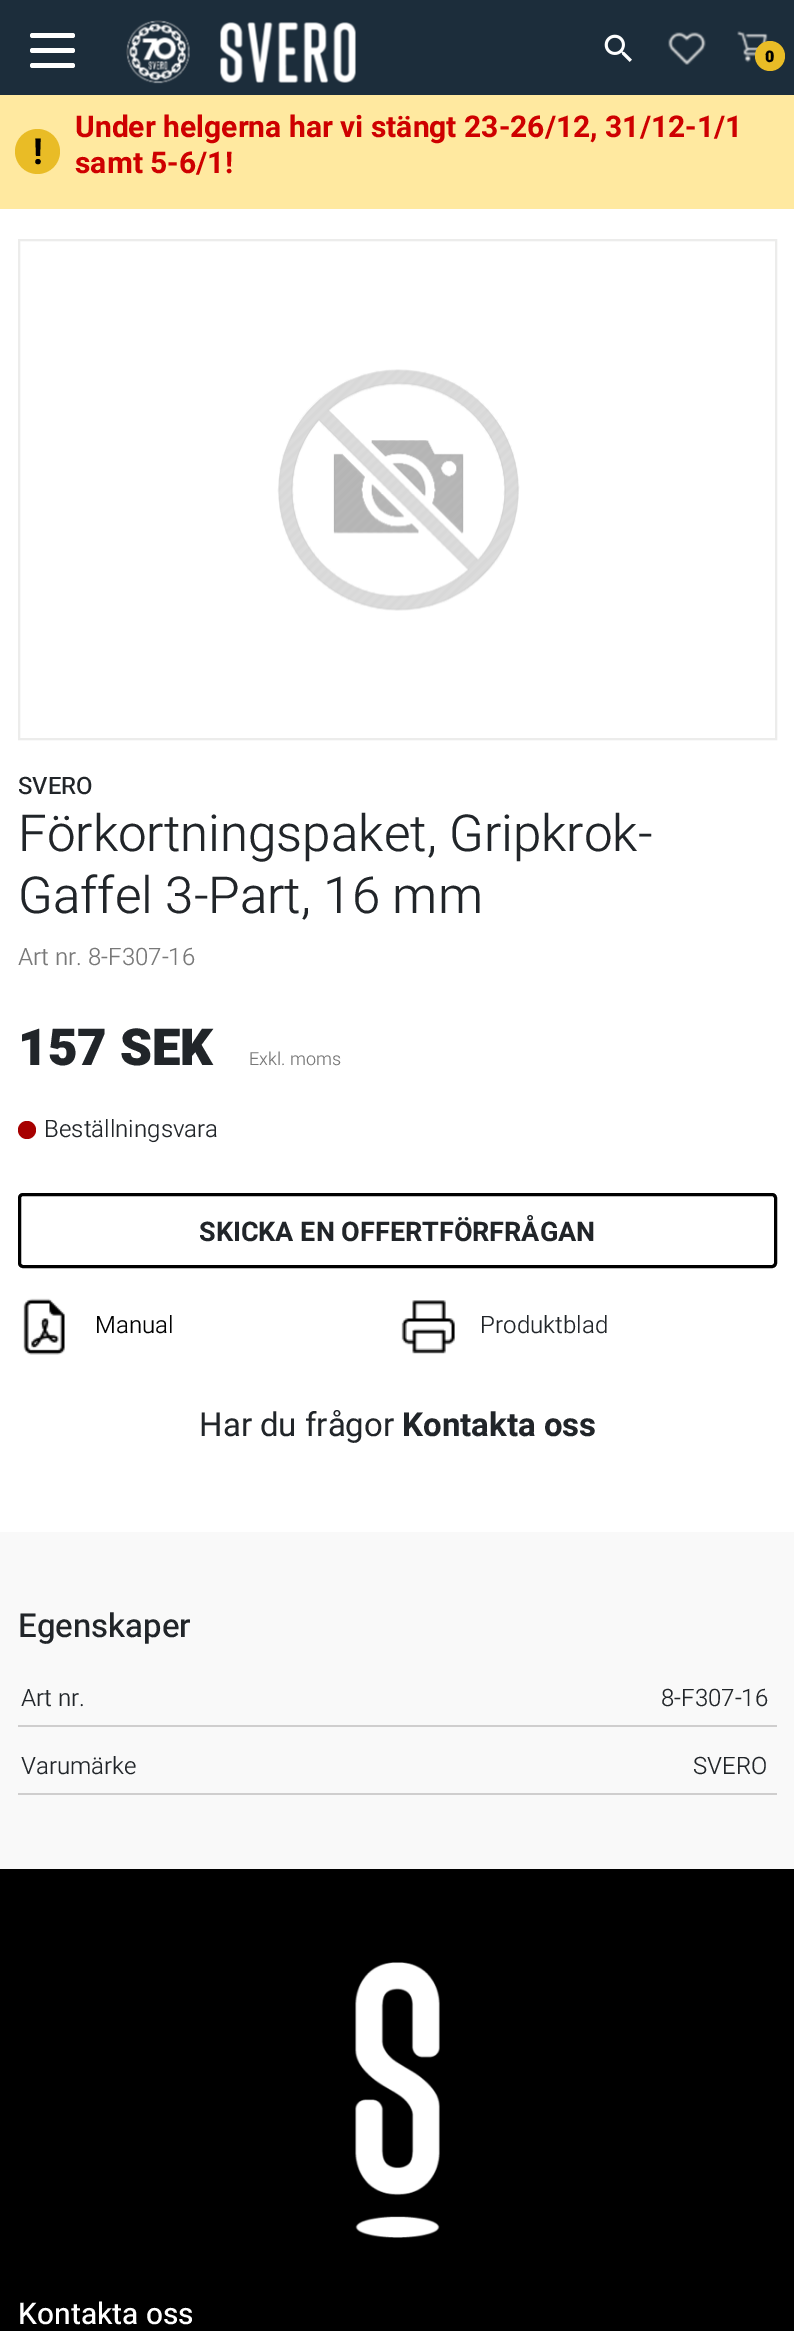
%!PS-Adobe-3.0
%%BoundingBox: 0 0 794 2331
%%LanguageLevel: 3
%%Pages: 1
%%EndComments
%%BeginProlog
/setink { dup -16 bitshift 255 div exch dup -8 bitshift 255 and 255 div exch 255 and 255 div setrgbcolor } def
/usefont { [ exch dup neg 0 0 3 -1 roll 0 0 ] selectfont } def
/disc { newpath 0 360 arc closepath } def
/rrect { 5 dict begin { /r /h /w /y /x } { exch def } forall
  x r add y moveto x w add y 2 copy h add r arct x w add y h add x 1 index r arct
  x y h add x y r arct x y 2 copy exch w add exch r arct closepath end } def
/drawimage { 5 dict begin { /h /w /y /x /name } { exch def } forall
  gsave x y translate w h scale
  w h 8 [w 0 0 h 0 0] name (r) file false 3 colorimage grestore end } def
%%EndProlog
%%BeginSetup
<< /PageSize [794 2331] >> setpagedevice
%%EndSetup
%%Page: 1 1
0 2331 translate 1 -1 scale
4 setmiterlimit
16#FFFFFF setink
0 0 794 2331 rectfill
16#1C2D3B setink
0 0 794 95 rectfill
16#FFFFFF setink
30 48 45 5 2.5 rrect fill
30 33 45 5 2.5 rrect fill
30 63 45 5 2.5 rrect fill
(img1.raw) 126 20 64 64 drawimage
(img2.raw) 220 22 136 61 drawimage
(img3.raw) 604 34 28 28 drawimage
(img4.raw) 668 32 38 33 drawimage
(img5.raw) 737 31 31 32 drawimage
16#E9BC26 setink
770 56 15 disc fill
/Heebo-Black 16 usefont
16#000000 setink
765 62 moveto (0) show
16#FFE9A0 setink
0 95 794 114 rectfill
16#E9BC26 setink
37.5 151.5 22.5 disc fill
/Heebo-Bold 36 usefont
16#000000 setink
33 164 moveto (!) show
/Heebo-Bold 30 usefont
16#CE0000 setink
75 137 moveto (Under helgerna har vi stängt 23-26/12, 31/12-1/1) show
75 173 moveto (samt 5-6/1!) show
16#ECECEB setink
2 setlinewidth
19 240 757 499 rectstroke
(img6.raw) 277 369 243 242 drawimage
/Heebo-Medium 24 usefont
16#212529 setink
18 794 moveto (SVERO) show
/Heebo-Light 51 usefont
18 851 moveto (Förkortningspaket, Gripkrok-) show
18 913 moveto (Gaffel 3-Part, 16 mm) show
/Heebo-Light 24 usefont
16#787878 setink
18 965 moveto (Art nr. 8-F307-16) show
/Heebo-Black 51 usefont
16#212529 setink
18 1065 moveto (157 SEK) show
/Heebo-Light 18 usefont
16#787878 setink
249 1065 moveto (Exkl. moms) show
16#A70000 setink
27 1130 9 disc fill
/Heebo-Light 24 usefont
16#212529 setink
44 1137 moveto (Beställningsvara) show
16#000000 setink
3 setlinewidth
19.5 1194.5 756 72 3.5 rrect stroke
/Heebo-Bold 27 usefont
16#212529 setink
199 1241 moveto (SKICKA EN OFFERTFÖRFRÅGAN) show
(img7.raw) 23 1298 42 57 drawimage
/Heebo-Light 24 usefont
16#000000 setink
95 1333 moveto (Manual) show
(img8.raw) 401 1300 54 54 drawimage
16#212529 setink
480 1333 moveto (Produktblad) show
/Heebo-Regular 33 usefont
199 1436 moveto (Har du frågor) show
/Heebo-Bold 33 usefont
402 1436 moveto (Kontakta oss) show
16#F9F9F9 setink
0 1532 794 337 rectfill
/Heebo-Medium 33 usefont
16#212529 setink
18 1637 moveto (Egenskaper) show
16#CFCECE setink
18 1725 759 2 rectfill
/Heebo-Light 24 usefont
16#212529 setink
21 1706 moveto (Art nr.) show
661 1706 moveto (8-F307-16) show
16#CFCECE setink
18 1793 759 2 rectfill
16#212529 setink
21 1774 moveto (Varumärke) show
693 1774 moveto (SVERO) show
16#000000 setink
0 1869 794 462 rectfill
(img9.raw) 355 1962 85 276 drawimage
/Heebo-Medium 30 usefont
16#FFFFFF setink
18 2324 moveto (Kontakta oss) show
showpage
%%EOF
